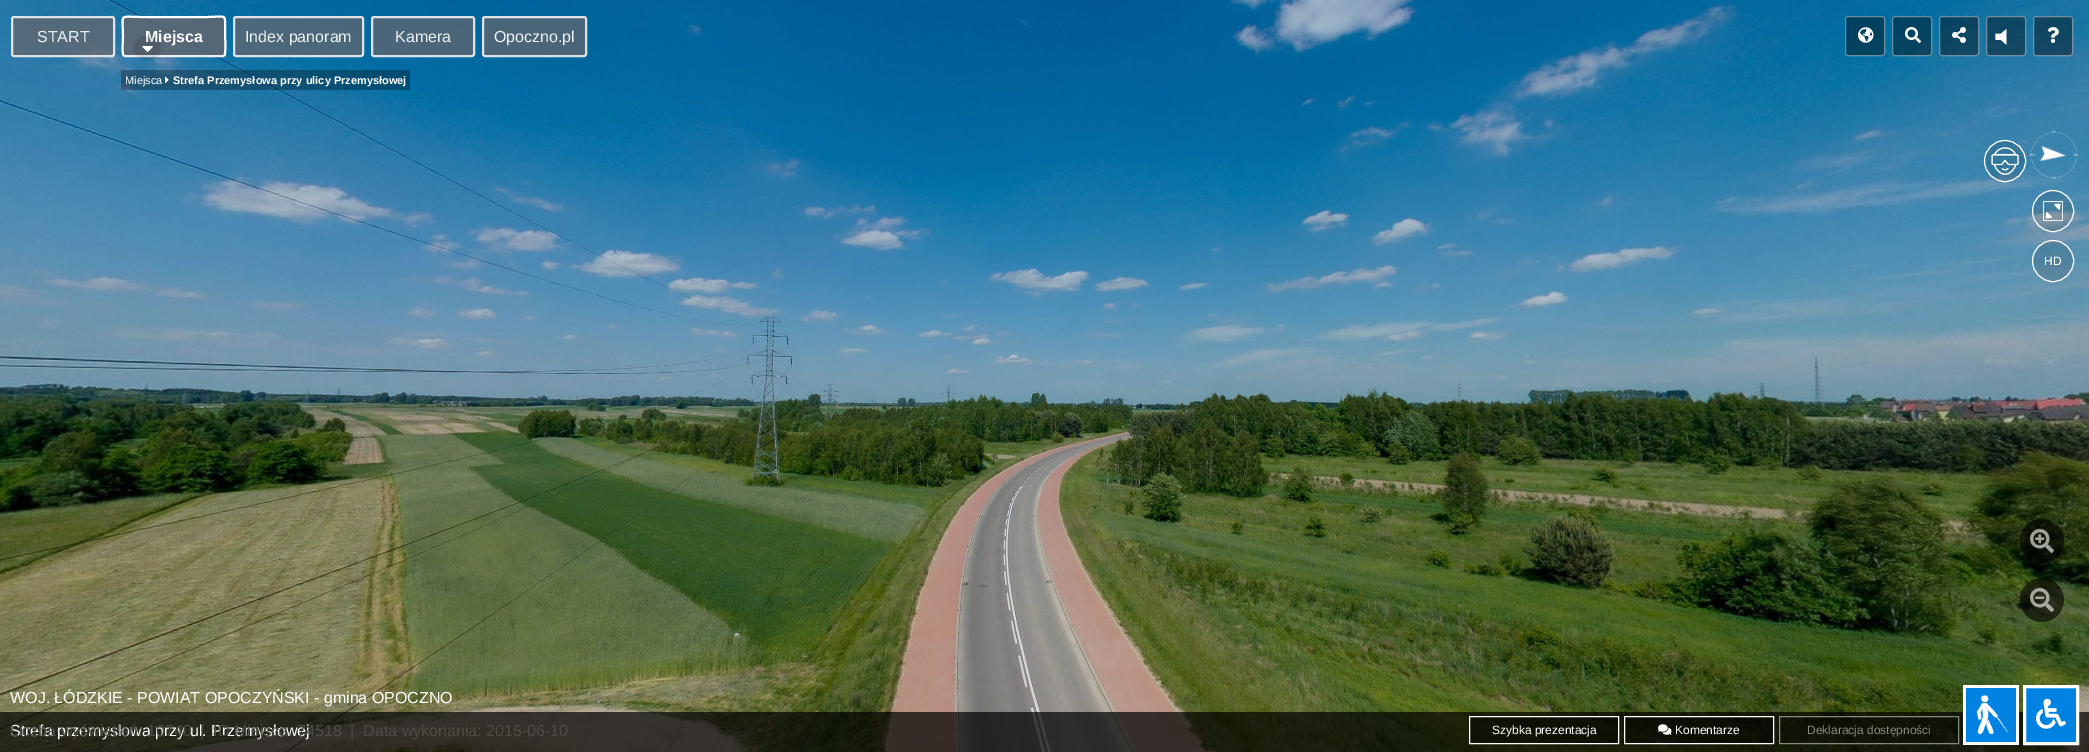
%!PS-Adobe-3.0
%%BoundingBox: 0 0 2089 752
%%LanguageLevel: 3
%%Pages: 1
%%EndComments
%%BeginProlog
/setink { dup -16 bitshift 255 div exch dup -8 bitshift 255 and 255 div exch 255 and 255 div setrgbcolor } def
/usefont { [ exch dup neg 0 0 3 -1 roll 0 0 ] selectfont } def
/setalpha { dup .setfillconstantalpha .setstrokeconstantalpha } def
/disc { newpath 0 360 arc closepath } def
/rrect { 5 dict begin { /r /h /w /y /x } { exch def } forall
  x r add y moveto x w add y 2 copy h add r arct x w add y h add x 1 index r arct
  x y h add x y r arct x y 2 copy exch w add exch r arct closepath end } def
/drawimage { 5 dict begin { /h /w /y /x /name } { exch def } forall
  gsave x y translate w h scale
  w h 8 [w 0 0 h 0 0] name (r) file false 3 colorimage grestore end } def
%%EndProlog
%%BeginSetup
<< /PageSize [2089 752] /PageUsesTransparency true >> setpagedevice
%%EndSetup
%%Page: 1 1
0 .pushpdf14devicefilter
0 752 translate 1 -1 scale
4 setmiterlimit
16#FFFFFF setink
0 0 2089 752 rectfill
(img1.raw) 0 0 2089 752 drawimage
0.72 setalpha
16#67656A setink
11 16 104 41 3 rrect fill
0.81 setalpha
16#FFFFFF setink
2 setlinewidth
12 17 102 39 2 rrect stroke
/LiberationSans-Regular 16 usefont
1 setalpha
16#EEF0F2 setink
37 42 moveto (START) show
0.8 setalpha
16#67656A setink
122 16 104 41 3 rrect fill
0.9 setalpha
16#FFFFFF setink
224.5 55.5 moveto 223 56 lineto 141.5 56 lineto 125 56 lineto 123.5 55.5 lineto stroke
1 setalpha
123.5 55.5 moveto 122 54 123 39.5 123 36.5 curveto 123 12.5 118 17 141.5 17 curveto 206.5 17 lineto 227.5 17 225 12.5 225 30.5 curveto 225 34 226 54 224.5 55.5 curveto stroke
/LiberationSans-Bold 16 usefont
145 42 moveto (Miejsca) show
0.1 setalpha
16#000000 setink
134 36 27 24 12 rrect fill
1 setalpha
(img2.raw) 142 46 11 6 drawimage
0.72 setalpha
16#67656A setink
233 16 131 41 3 rrect fill
0.81 setalpha
16#FFFFFF setink
234 17 129 39 2 rrect stroke
/LiberationSans-Regular 16 usefont
1 setalpha
16#EEF0F2 setink
245 42 moveto (Index panoram) show
0.72 setalpha
16#67656A setink
371 16 104 41 3 rrect fill
0.81 setalpha
16#FFFFFF setink
372 17 102 39 2 rrect stroke
1 setalpha
16#EEF0F2 setink
395 42 moveto (Kamera) show
0.72 setalpha
16#67656A setink
482 16 105 41 3 rrect fill
0.81 setalpha
16#FFFFFF setink
483 17 103 39 2 rrect stroke
1 setalpha
16#EEF0F2 setink
494 42 moveto (Opoczno.pl) show
0.4 setalpha
16#000000 setink
1845 16 40 40 3 rrect fill
16#FFFFFF setink
1 setlinewidth
1845.5 16.5 39 39 2.5 rrect stroke
1 setalpha
(img3.raw) 1858 27 16 16 drawimage
0.4 setalpha
16#000000 setink
1892 16 40 40 3 rrect fill
16#FFFFFF setink
1892.5 16.5 39 39 2.5 rrect stroke
1 setalpha
(img4.raw) 1905 27 16 16 drawimage
0.4 setalpha
16#000000 setink
1939 16 40 40 3 rrect fill
16#FFFFFF setink
1939.5 16.5 39 39 2.5 rrect stroke
1 setalpha
(img5.raw) 1952 27 14 16 drawimage
0.4 setalpha
16#000000 setink
1986 16 40 40 3 rrect fill
16#FFFFFF setink
1986.5 16.5 39 39 2.5 rrect stroke
1 setalpha
(img6.raw) 1995 28 12 17 drawimage
0.4 setalpha
16#000000 setink
2033 16 40 40 3 rrect fill
16#FFFFFF setink
2033.5 16.5 39 39 2.5 rrect stroke
1 setalpha
(img7.raw) 2047 27 12 16 drawimage
0.3 setalpha
16#000000 setink
121 70 289 20 rectfill
/LiberationSans-Regular 11 usefont
1 setalpha
16#FFFFFF setink
125 84 moveto (Miejsca) show
(img8.raw) 165 76 4 7 drawimage
/LiberationSans-Bold 11 usefont
173 84 moveto (Strefa Przemysłowa przy ulicy Przemysłowej) show
0.7 setalpha
16#000000 setink
0 712 2089 40 rectfill
1 setalpha
(img9.raw) 1963 685 56 60 drawimage
16#0082E3 setink
2024.5 686.5 moveto 2077.5 686.5 lineto 2077.5 743.5 lineto 2024.5 743.5 lineto closepath gsave fill grestore
16#FFFFFF setink
3 setlinewidth
stroke
(img10.raw) 2036 698 30 31 drawimage
0.1 setalpha
16#010101 setink
2005 161 20.5 disc fill
1 setalpha
16#FFFFFF setink
1 setlinewidth
2005 161 20.5 disc stroke
(img11.raw) 1991 147 28 28 drawimage
(img12.raw) 2029 130 50 50 drawimage
(img13.raw) 2040 146 26 16 drawimage
0.1 setalpha
16#010101 setink
2053 211 20.5 disc fill
1 setalpha
16#FFFFFF setink
2053 211 20.5 disc stroke
(img14.raw) 2043 201 20 20 drawimage
0.1 setalpha
16#010101 setink
2053 261 20.5 disc fill
1 setalpha
16#FFFFFF setink
2053 261 20.5 disc stroke
/LiberationSans-Regular 12 usefont
2044 265 moveto (HD) show
/LiberationSans-Regular 16 usefont
10 703 moveto (WOJ. ŁÓDZKIE - POWIAT OPOCZYŃSKI - gmina OPOCZNO) show
10 736 moveto (Strefa przemysłowa przy ul. Przemysłowej) show
16#4D4B44 setink
10 736 moveto (Liczba wyświetleń: 10740  |  ID Miejsca: 74518  |  Data wykonania: 2015-06-10) show
0.45 setalpha
16#000000 setink
1469.5 716.5 moveto 1618.5 716.5 lineto 1618.5 743.5 lineto 1469.5 743.5 lineto closepath fill
1 setalpha
16#FFFFFF setink
1469.5 716.5 moveto 1618.5 716.5 lineto 1618.5 743.5 lineto 1469.5 743.5 lineto closepath stroke
/LiberationSans-Regular 12 usefont
1492 734 moveto (Szybka prezentacja) show
0.45 setalpha
16#000000 setink
1624.5 716.5 moveto 1773.5 716.5 lineto 1773.5 743.5 lineto 1624.5 743.5 lineto closepath fill
1 setalpha
16#FFFFFF setink
1624.5 716.5 moveto 1773.5 716.5 lineto 1773.5 743.5 lineto 1624.5 743.5 lineto closepath stroke
(img15.raw) 1658 724 14 11 drawimage
1675 734 moveto (Komentarze) show
0.23 setalpha
16#000000 setink
1779 716 180 28 rectfill
0.5 setalpha
16#FFFFFF setink
1779.5 716.5 179 27 rectstroke
1 setalpha
16#878982 setink
1807 734 moveto (Deklaracja dostępności) show
0.6 setalpha
16#000000 setink
2042 541 22 disc fill
1 setalpha
(img16.raw) 2030 529 24 24 drawimage
0.6 setalpha
2042 600 22 disc fill
1 setalpha
(img17.raw) 2030 588 24 24 drawimage
.poppdf14devicefilter showpage
%%EOF
